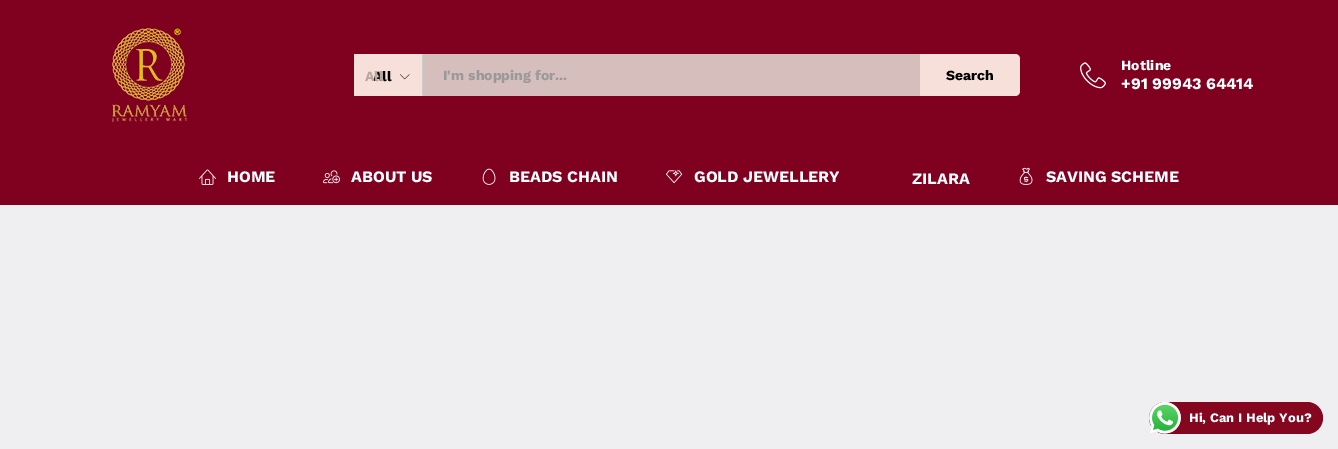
%!PS-Adobe-3.0
%%BoundingBox: 0 0 1338 449
%%LanguageLevel: 3
%%Pages: 1
%%EndComments
%%BeginProlog
/setink { dup -16 bitshift 255 div exch dup -8 bitshift 255 and 255 div exch 255 and 255 div setrgbcolor } def
/usefont { [ exch dup neg 0 0 3 -1 roll 0 0 ] selectfont } def
/rrect { 5 dict begin { /r /h /w /y /x } { exch def } forall
  x r add y moveto x w add y 2 copy h add r arct x w add y h add x 1 index r arct
  x y h add x y r arct x y 2 copy exch w add exch r arct closepath end } def
/drawimage { 5 dict begin { /h /w /y /x /name } { exch def } forall
  gsave x y translate w h scale
  w h 8 [w 0 0 h 0 0] name (r) file false 3 colorimage grestore end } def
%%EndProlog
%%BeginSetup
<< /PageSize [1338 449] >> setpagedevice
%%EndSetup
%%Page: 1 1
0 449 translate 1 -1 scale
4 setmiterlimit
16#EFEEF0 setink
0 0 1338 449 rectfill
16#800020 setink
0 0 1338 205 rectfill
(img1.raw) 112 28 75 94 drawimage
16#F7E0D9 setink
354 54 69 42 rectfill
/WorkSans-Bold 14 usefont
16#000000 setink
373 81 moveto (All) show
16#B7A6A1 setink
365 81 moveto (All) show
16#CCCCCC setink
423 54 moveto 422 55 lineto 422 95 lineto 423 96 lineto closepath fill
(img2.raw) 400 74 10 6 drawimage
16#D6BEBC setink
423 54 497 42 rectfill
16#999999 setink
443 80 moveto (I'm shopping for...) show
16#F7E0D9 setink
920 54 moveto 1015 54 lineto 1018 54 1020 56 1020 59 curveto 1020 91 lineto 1020 94 1018 96 1015 96 curveto 920 96 lineto closepath fill
16#000000 setink
946 80 moveto (Search) show
(img3.raw) 1080 62 26 27 drawimage
16#FFFFFF setink
1121 70 moveto (Hotline) show
/WorkSans-Bold 16 usefont
1121 89 moveto (+91 99943 64414) show
(img4.raw) 199 169 17 16 drawimage
227 182 moveto (HOME) show
(img5.raw) 323 170 17 14 drawimage
351 182 moveto (ABOUT US) show
(img6.raw) 482 168 14 17 drawimage
509 182 moveto (BEADS CHAIN) show
(img7.raw) 666 170 17 14 drawimage
694 182 moveto (GOLD JEWELLERY) show
912 184 moveto (ZILARA) show
(img8.raw) 1019 167 14 18 drawimage
1046 182 moveto (SAVING SCHEME) show
16#84061F setink
1149 402 174 32 16 rrect fill
(img9.raw) 1149 402 32 32 drawimage
/WorkSans-Bold 13 usefont
16#FFFFFF setink
1189 422 moveto (Hi, Can I Help You?) show
showpage
%%EOF
